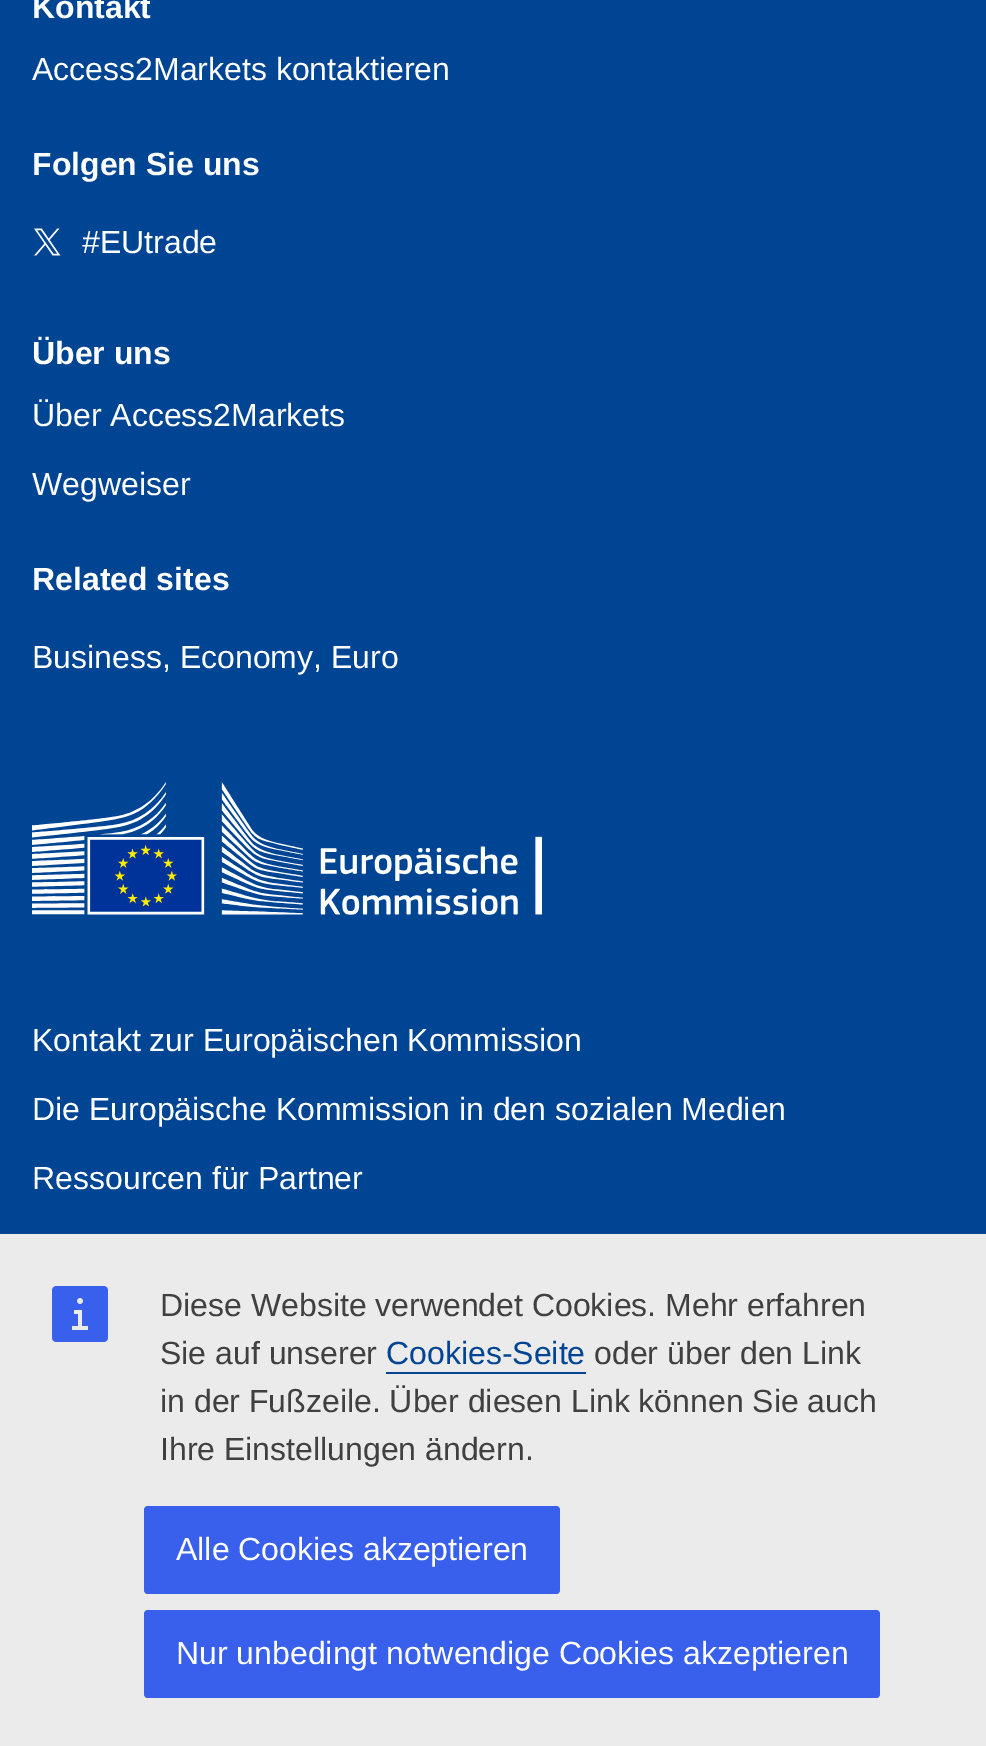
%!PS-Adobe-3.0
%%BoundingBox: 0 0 986 1746
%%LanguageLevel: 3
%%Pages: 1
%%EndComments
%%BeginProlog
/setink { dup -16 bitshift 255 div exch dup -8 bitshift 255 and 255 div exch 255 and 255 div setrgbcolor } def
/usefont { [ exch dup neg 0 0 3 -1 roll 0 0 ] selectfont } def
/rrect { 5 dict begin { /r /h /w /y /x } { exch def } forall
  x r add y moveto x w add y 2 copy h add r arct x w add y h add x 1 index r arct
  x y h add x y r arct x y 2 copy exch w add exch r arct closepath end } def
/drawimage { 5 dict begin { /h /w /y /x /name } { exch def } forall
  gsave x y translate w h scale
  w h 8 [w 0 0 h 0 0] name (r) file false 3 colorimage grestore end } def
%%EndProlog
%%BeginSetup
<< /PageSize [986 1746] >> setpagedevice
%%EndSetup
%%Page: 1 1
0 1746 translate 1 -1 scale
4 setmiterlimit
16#004494 setink
0 0 986 1746 rectfill
/LiberationSans-Bold 32 usefont
16#FFFFFF setink
32 18 moveto (Kontakt) show
/LiberationSans-Regular 32 usefont
32 80 moveto (Access2Markets kontaktieren) show
/LiberationSans-Bold 32 usefont
32 175 moveto (Folgen Sie uns) show
(img1.raw) 34 228 27 28 drawimage
/LiberationSans-Regular 32 usefont
82 253 moveto (#EUtrade) show
/LiberationSans-Bold 32 usefont
32 364 moveto (Über uns) show
/LiberationSans-Regular 32 usefont
32 426 moveto (Über Access2Markets) show
32 495 moveto (Wegweiser) show
/LiberationSans-Bold 32 usefont
32 590 moveto (Related sites) show
/LiberationSans-Regular 32 usefont
32 668 moveto (Business, Economy, Euro) show
(img2.raw) 32 782 510 133 drawimage
[
    [(Kontakt zur Europäischen Kommission) 32 1051]
    [(Die Europäische Kommission in den sozialen Medien) 32 1120]
    [(Ressourcen für Partner) 32 1189]
] { aload pop moveto show } forall
16#EBEBEB setink
0 1234 986 512 rectfill
(img3.raw) 52 1286 56 56 drawimage
16#404040 setink
160 1316 moveto (Diese Website verwendet Cookies. Mehr erfahren) show
160 1364 moveto (Sie auf unserer) show
16#004494 setink
386 1364 moveto (Cookies-Seite) show
386 1372 200 2 rectfill
16#404040 setink
[
    [(oder über den Link) 594 1364]
    [(in der Fußzeile. Über diesen Link können Sie auch) 160 1412]
    [(Ihre Einstellungen ändern.) 160 1460]
] { aload pop moveto show } forall
16#3860ED setink
144 1506 416 88 4 rrect fill
16#FFFFFF setink
176 1560 moveto (Alle Cookies akzeptieren) show
16#3860ED setink
144 1610 736 88 4 rrect fill
16#FFFFFF setink
176 1664 moveto (Nur unbedingt notwendige Cookies akzeptieren) show
showpage
%%EOF
